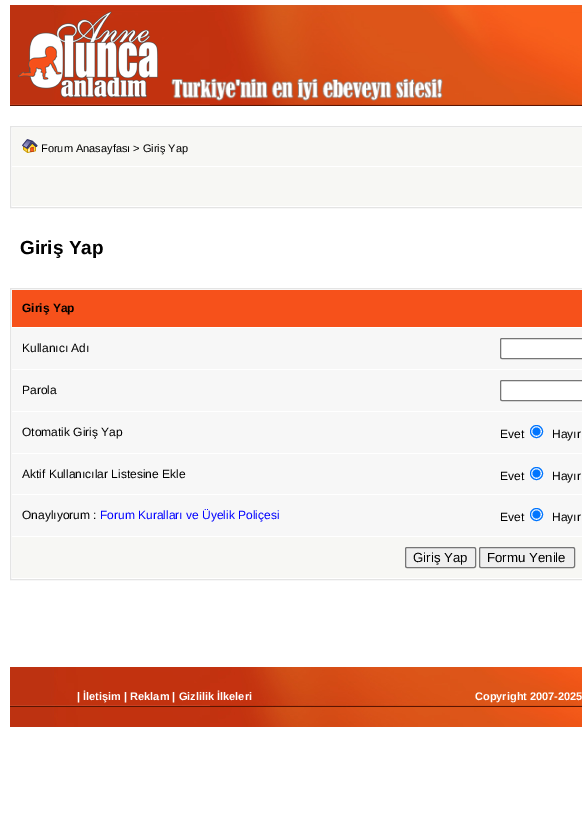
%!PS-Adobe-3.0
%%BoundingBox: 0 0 582 828
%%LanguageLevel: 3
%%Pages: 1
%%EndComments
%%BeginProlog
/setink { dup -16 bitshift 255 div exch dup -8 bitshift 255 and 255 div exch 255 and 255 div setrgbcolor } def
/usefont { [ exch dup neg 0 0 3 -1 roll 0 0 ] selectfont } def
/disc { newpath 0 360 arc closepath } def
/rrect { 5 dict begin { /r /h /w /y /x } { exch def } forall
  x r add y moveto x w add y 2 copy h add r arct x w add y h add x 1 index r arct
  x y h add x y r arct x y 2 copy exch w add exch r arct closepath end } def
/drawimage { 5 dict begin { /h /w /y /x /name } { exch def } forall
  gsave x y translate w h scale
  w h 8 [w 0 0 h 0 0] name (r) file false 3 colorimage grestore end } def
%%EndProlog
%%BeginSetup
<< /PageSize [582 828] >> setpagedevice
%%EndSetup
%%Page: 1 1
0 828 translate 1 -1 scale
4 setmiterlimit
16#FFFFFF setink
0 0 582 828 rectfill
(img1.raw) 10 5 572 101 drawimage
(img2.raw) 18 11 140 87 drawimage
(img3.raw) 171 78 272 23 drawimage
16#E4E4E4 setink
10.5 126.5 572 81 rectstroke
16#F7F7F4 setink
12 128 570 38 rectfill
(img4.raw) 22 139 16 14 drawimage
/LiberationSans-Regular 11 usefont
16#000000 setink
41 152 moveto (Forum Anasayfası > Giriş Yap) show
16#F7F7F4 setink
12 167 570 39 rectfill
/LiberationSans-Bold 19 usefont
16#000000 setink
20 254 moveto (Giriş Yap) show
16#E4E4E4 setink
10.5 288.5 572 291 rectstroke
16#F6511B setink
12 290 570 37 rectfill
/LiberationSans-Bold 12 usefont
16#000000 setink
22 312 moveto (Giriş Yap) show
16#F7F7F7 setink
12 328 570 41 rectfill
/LiberationSans-Regular 12 usefont
16#000000 setink
22 352 moveto (Kullanıcı Adı) show
16#FFFFFF setink
500.5 338.5 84 20 1.5 rrect gsave fill grestore
16#767676 setink
stroke
16#F7F7F7 setink
12 370 570 41 rectfill
16#000000 setink
22 394 moveto (Parola) show
16#FFFFFF setink
500.5 380.5 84 20 1.5 rrect gsave fill grestore
16#767676 setink
stroke
16#F7F7F7 setink
12 412 570 41 rectfill
16#000000 setink
22 436 moveto (Otomatik Giriş Yap) show
500 438 moveto (Evet) show
16#FFFFFF setink
536.5 431.5 6 disc gsave fill grestore
16#0075FF setink
stroke
536.5 431.5 4 disc fill
16#000000 setink
552 438 moveto (Hayır) show
16#F7F7F7 setink
12 454 570 40 rectfill
16#000000 setink
22 478 moveto (Aktif Kullanıcılar Listesine Ekle) show
500 480 moveto (Evet) show
16#FFFFFF setink
536.5 473.5 6 disc gsave fill grestore
16#0075FF setink
stroke
536.5 473.5 4 disc fill
16#000000 setink
552 480 moveto (Hayır) show
16#F7F7F7 setink
12 495 570 41 rectfill
16#000000 setink
22 519 moveto (Onaylıyorum :) show
16#0000FF setink
100 519 moveto (Forum Kuralları ve Üyelik Poliçesi) show
16#000000 setink
500 521 moveto (Evet) show
16#FFFFFF setink
536.5 514.5 6 disc gsave fill grestore
16#0075FF setink
stroke
536.5 514.5 4 disc fill
16#000000 setink
552 521 moveto (Hayır) show
16#F7F7F4 setink
12 537 570 41 rectfill
16#EFEFEF setink
405.5 547.5 70 20 1.5 rrect gsave fill grestore
16#767676 setink
stroke
/LiberationSans-Regular 13.25 usefont
16#000000 setink
413 562 moveto (Giriş Yap) show
16#EFEFEF setink
479.5 547.5 95 20 1.5 rrect gsave fill grestore
16#767676 setink
stroke
16#000000 setink
487 562 moveto (Formu Yenile) show
(img5.raw) 10 667 572 60 drawimage
/LiberationSans-Bold 11 usefont
16#FFFFFF setink
77 700 moveto (| İletişim | Reklam | Gizlilik İlkeleri) show
475 700 moveto (Copyright 2007-2025) show
showpage
%%EOF
